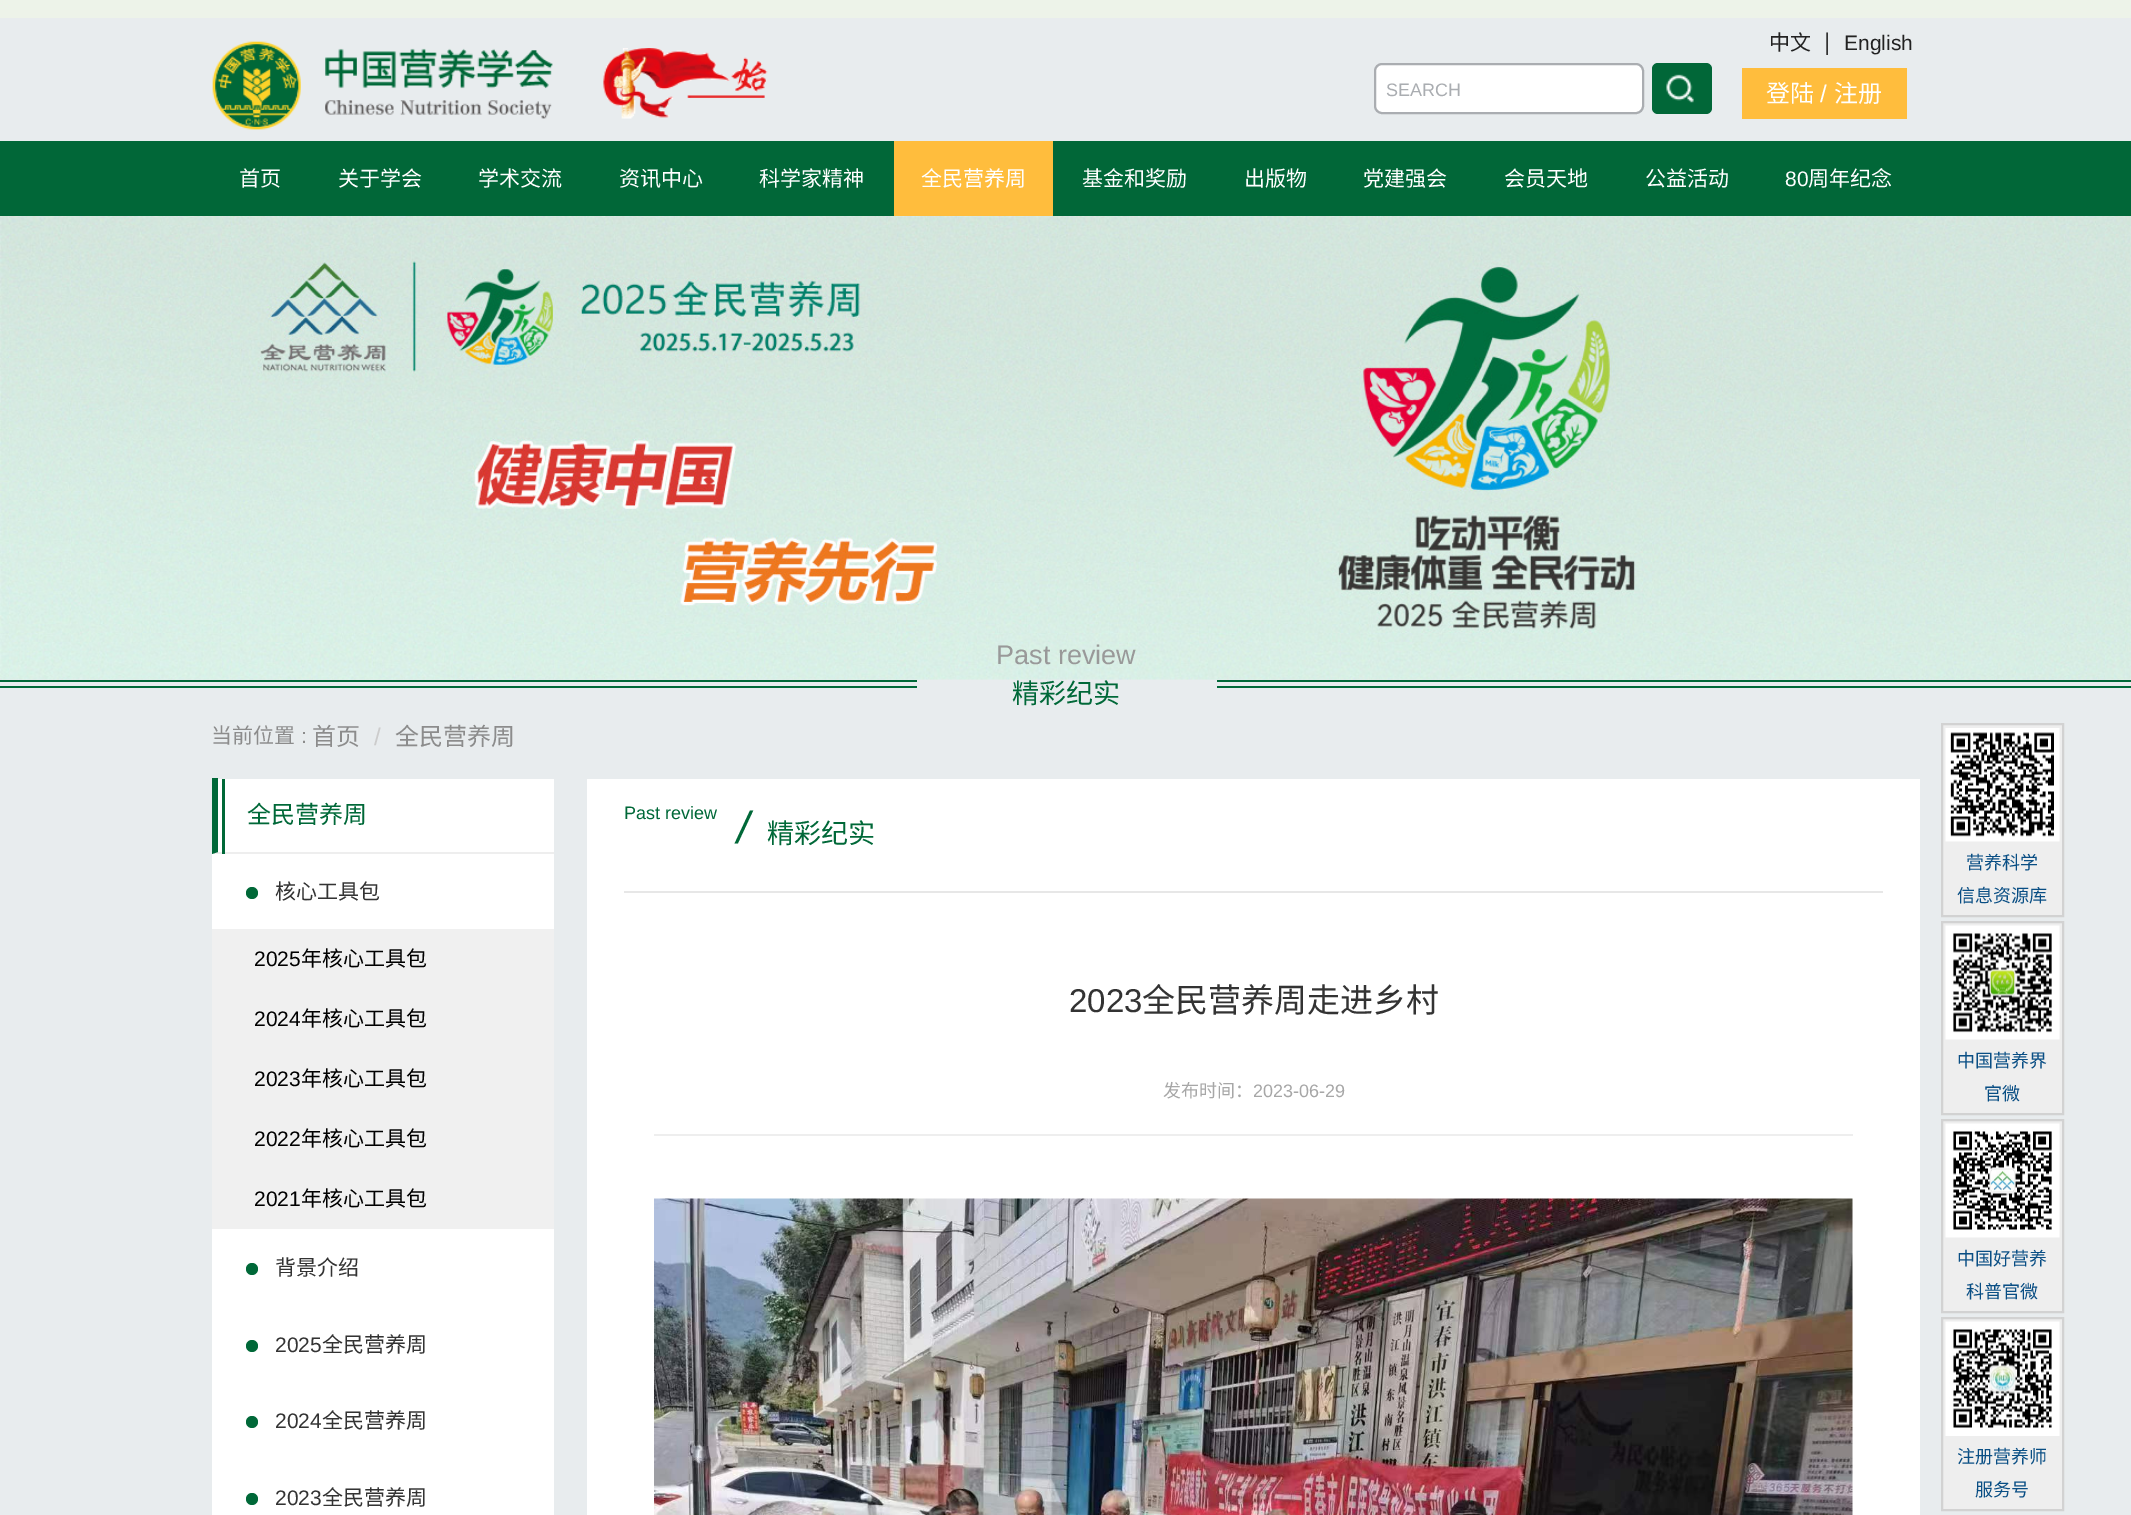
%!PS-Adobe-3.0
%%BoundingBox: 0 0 2131 1515
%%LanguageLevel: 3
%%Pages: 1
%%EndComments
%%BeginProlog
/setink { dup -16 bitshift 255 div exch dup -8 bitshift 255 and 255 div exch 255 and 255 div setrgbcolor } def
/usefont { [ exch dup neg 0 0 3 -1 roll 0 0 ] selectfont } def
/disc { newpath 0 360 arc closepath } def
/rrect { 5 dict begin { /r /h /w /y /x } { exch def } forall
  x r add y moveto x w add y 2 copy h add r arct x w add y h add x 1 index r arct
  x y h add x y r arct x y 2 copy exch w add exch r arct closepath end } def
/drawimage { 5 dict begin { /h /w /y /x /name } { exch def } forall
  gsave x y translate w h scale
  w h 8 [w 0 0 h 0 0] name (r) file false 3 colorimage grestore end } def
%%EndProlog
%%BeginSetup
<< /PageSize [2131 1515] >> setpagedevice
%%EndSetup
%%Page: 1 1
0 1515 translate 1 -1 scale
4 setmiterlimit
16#E8ECEE setink
0 0 2131 1515 rectfill
16#EDF3E9 setink
0 0 2131 18 rectfill
(img1.raw) 212 41 341 89 drawimage
(img2.raw) 603 48 165 71 drawimage
16#FFFFFF setink
1375 64 268 49 7 rrect gsave fill grestore
16#AAADB1 setink
2 setlinewidth
stroke
/LiberationSans-Regular 18 usefont
1386 96 moveto (SEARCH) show
16#016738 setink
1652 63 60 51 6 rrect fill
(img3.raw) 1666 74 28 29 drawimage
/NotoSansCJKSC-Regular 21 usefont
16#222222 setink
1769 50 moveto (中文) show
/LiberationSans-Regular 24 usefont
16#333333 setink
1824 50 moveto (|) show
/LiberationSans-Regular 21 usefont
16#222222 setink
1844 50 moveto (English) show
16#FFBD3D setink
1742 68 165 51 rectfill
/NotoSansCJKSC-Regular 24 usefont
16#FFFFFF setink
1766 102 moveto (登陆) show
/LiberationSans-Regular 24 usefont
1820 102 moveto (/) show
/NotoSansCJKSC-Regular 24 usefont
1834 102 moveto (注册) show
16#016738 setink
0 141 2131 75 rectfill
/NotoSansCJKSC-Regular 21 usefont
16#FFFFFF setink
[
    [(首页) 239 186]
    [(关于学会) 338 186]
    [(学术交流) 478 186]
    [(资讯中心) 619 186]
    [(科学家精神) 759 186]
] { aload pop moveto show } forall
16#FFBD3D setink
894 141 159 75 rectfill
16#FFFFFF setink
[
    [(全民营养周) 921 186]
    [(基金和奖励) 1082 186]
    [(出版物) 1244 186]
    [(党建强会) 1363 186]
    [(会员天地) 1504 186]
    [(公益活动) 1645 186]
] { aload pop moveto show } forall
/LiberationSans-Regular 21 usefont
1785 186 moveto (80) show
/NotoSansCJKSC-Regular 21 usefont
1808 186 moveto (周年纪念) show
(img4.raw) 0 216 2131 464 drawimage
16#006838 setink
0 680 917 2 rectfill
0 686 917 2 rectfill
/LiberationSans-Regular 27 usefont
16#999999 setink
996 664 moveto (Past review) show
/NotoSansCJKSC-Regular 27 usefont
16#006838 setink
1012 703 moveto (精彩纪实) show
1217 680 914 2 rectfill
1217 686 914 2 rectfill
/NotoSansCJKSC-Regular 21 usefont
16#8C8C8C setink
211 743 moveto (当前位置) show
/LiberationSans-Regular 21 usefont
301 743 moveto (:) show
/NotoSansCJKSC-Regular 24 usefont
312 745 moveto (首页) show
/LiberationSans-Regular 24 usefont
16#CCCCCC setink
374 745 moveto (/) show
/NotoSansCJKSC-Regular 24 usefont
16#8C8C8C setink
395 745 moveto (全民营养周) show
16#FFFFFF setink
212 779 342 736 rectfill
16#EEEEEE setink
554 854 moveto 212 854 lineto 218 852 lineto 554 852 lineto closepath fill
16#006838 setink
212 854 moveto 212 778 lineto 218 778 lineto 218 852 lineto closepath fill
222 779 3 75 rectfill
247 823 moveto (全民营养周) show
252 893 6 disc fill
/NotoSansCJKSC-Regular 21 usefont
16#333333 setink
275 899 moveto (核心工具包) show
16#F0F0F0 setink
212 929 342 300 rectfill
/LiberationSans-Regular 21 usefont
16#000000 setink
254 966 moveto (2025) show
/NotoSansCJKSC-Regular 21 usefont
301 966 moveto (年核心工具包) show
/LiberationSans-Regular 21 usefont
254 1026 moveto (2024) show
/NotoSansCJKSC-Regular 21 usefont
301 1026 moveto (年核心工具包) show
/LiberationSans-Regular 21 usefont
254 1086 moveto (2023) show
/NotoSansCJKSC-Regular 21 usefont
301 1086 moveto (年核心工具包) show
/LiberationSans-Regular 21 usefont
254 1146 moveto (2022) show
/NotoSansCJKSC-Regular 21 usefont
301 1146 moveto (年核心工具包) show
/LiberationSans-Regular 21 usefont
254 1206 moveto (2021) show
/NotoSansCJKSC-Regular 21 usefont
301 1206 moveto (年核心工具包) show
16#006838 setink
252 1269 6 disc fill
16#333333 setink
275 1275 moveto (背景介绍) show
16#006838 setink
252 1346 6 disc fill
/LiberationSans-Regular 21 usefont
16#333333 setink
275 1352 moveto (2025) show
/NotoSansCJKSC-Regular 21 usefont
322 1352 moveto (全民营养周) show
16#006838 setink
252 1422 6 disc fill
/LiberationSans-Regular 21 usefont
16#333333 setink
275 1428 moveto (2024) show
/NotoSansCJKSC-Regular 21 usefont
322 1428 moveto (全民营养周) show
16#006838 setink
252 1499 6 disc fill
/LiberationSans-Regular 21 usefont
16#333333 setink
275 1505 moveto (2023) show
/NotoSansCJKSC-Regular 21 usefont
322 1505 moveto (全民营养周) show
16#FFFFFF setink
587 779 1333 736 rectfill
/LiberationSans-Regular 18 usefont
16#006838 setink
624 819 moveto (Past review) show
/LiberationSans-Italic 45 usefont
737 843 moveto (/) show
/NotoSansCJKSC-Regular 27 usefont
767 843 moveto (精彩纪实) show
16#E7E7E7 setink
624 891 1259 2 rectfill
16#EEEEEE setink
654 1134 1199 2 rectfill
/LiberationSans-Regular 33 usefont
16#333333 setink
1069 1012 moveto (2023) show
/NotoSansCJKSC-Regular 33 usefont
1142 1012 moveto (全民营养周走进乡村) show
/NotoSansCJKSC-Regular 18 usefont
16#A7A7A7 setink
1163 1097 moveto (发布时间：) show
/LiberationSans-Regular 18 usefont
1253 1097 moveto (2023-06-29) show
(img5.raw) 654 1198 1199 317 drawimage
16#EEEEEE setink
1942 724 moveto 2063 724 lineto 2063 916 lineto 1942 916 lineto closepath gsave fill grestore
16#D2D2D2 setink
stroke
(img6.raw) 1945 728 115 114 drawimage
/NotoSansCJKSC-Regular 18 usefont
16#094E84 setink
1966 869 moveto (营养科学) show
1957 902 moveto (信息资源库) show
16#EEEEEE setink
1942 922 moveto 2063 922 lineto 2063 1114 lineto 1942 1114 lineto closepath gsave fill grestore
16#D2D2D2 setink
stroke
(img7.raw) 1945 925 115 115 drawimage
16#094E84 setink
1957 1067 moveto (中国营养界) show
1984 1100 moveto (官微) show
16#EEEEEE setink
1942 1120 moveto 2063 1120 lineto 2063 1312 lineto 1942 1312 lineto closepath gsave fill grestore
16#D2D2D2 setink
stroke
(img8.raw) 1945 1123 115 115 drawimage
16#094E84 setink
1957 1265 moveto (中国好营养) show
1966 1298 moveto (科普官微) show
16#EEEEEE setink
1942 1318 moveto 2063 1318 lineto 2063 1510 lineto 1942 1510 lineto closepath gsave fill grestore
16#D2D2D2 setink
stroke
(img9.raw) 1945 1321 115 115 drawimage
16#094E84 setink
1957 1463 moveto (注册营养师) show
1975 1496 moveto (服务号) show
showpage
%%EOF
